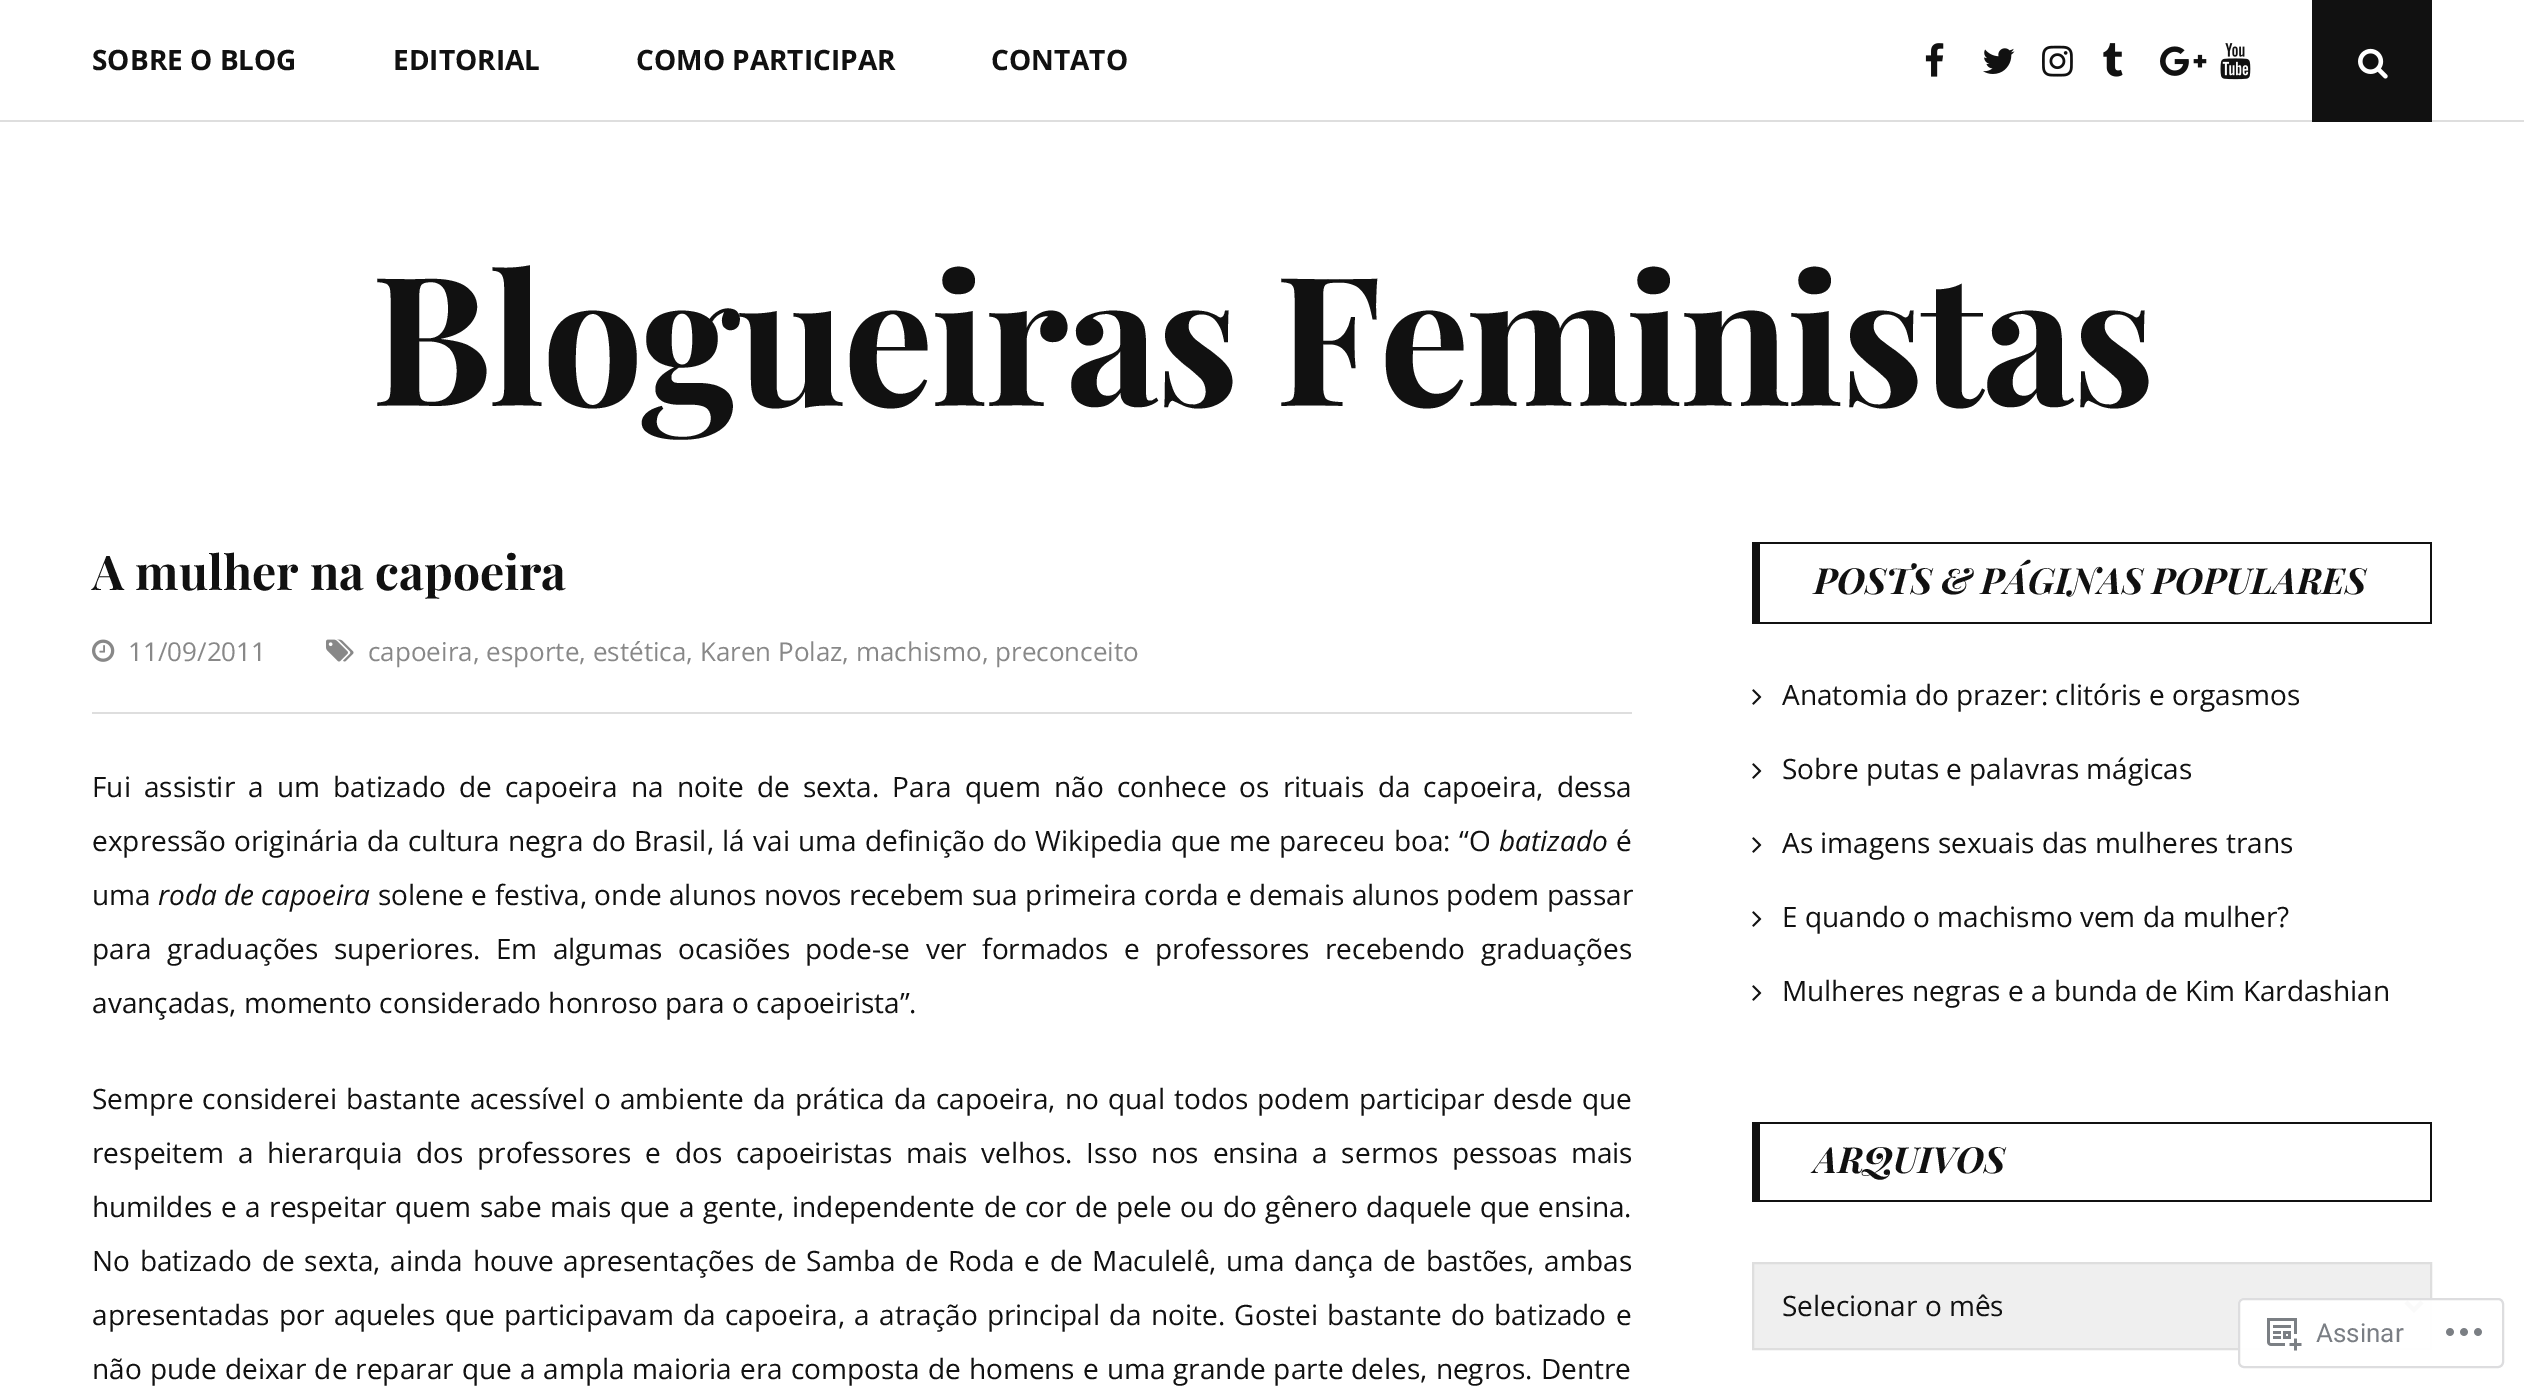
%!PS-Adobe-3.0
%%BoundingBox: 0 0 2524 1388
%%LanguageLevel: 3
%%Pages: 1
%%EndComments
%%BeginProlog
/setink { dup -16 bitshift 255 div exch dup -8 bitshift 255 and 255 div exch 255 and 255 div setrgbcolor } def
/usefont { [ exch dup neg 0 0 3 -1 roll 0 0 ] selectfont } def
/setalpha { dup .setfillconstantalpha .setstrokeconstantalpha } def
/rrect { 5 dict begin { /r /h /w /y /x } { exch def } forall
  x r add y moveto x w add y 2 copy h add r arct x w add y h add x 1 index r arct
  x y h add x y r arct x y 2 copy exch w add exch r arct closepath end } def
/drawimage { 5 dict begin { /h /w /y /x /name } { exch def } forall
  gsave x y translate w h scale
  w h 8 [w 0 0 h 0 0] name (r) file false 3 colorimage grestore end } def
%%EndProlog
%%BeginSetup
<< /PageSize [2524 1388] /PageUsesTransparency true >> setpagedevice
%%EndSetup
%%Page: 1 1
0 .pushpdf14devicefilter
0 1388 translate 1 -1 scale
4 setmiterlimit
16#FFFFFF setink
0 0 2524 1388 rectfill
16#DEDEDE setink
0 120 2524 2 rectfill
/OpenSans-Bold 28 usefont
16#111111 setink
[
    [(SOBRE O BLOG) 92 70]
    [(EDITORIAL) 393 70]
    [(COMO PARTICIPAR) 636 70]
    [(CONTATO) 991 70]
] { aload pop moveto show } forall
(img1.raw) 1925 43 19 34 drawimage
(img2.raw) 1983 48 32 26 drawimage
(img3.raw) 2042 45 31 32 drawimage
(img4.raw) 2103 43 20 34 drawimage
(img5.raw) 2160 46 47 30 drawimage
(img6.raw) 2220 43 31 37 drawimage
2312 0 120 122 rectfill
(img7.raw) 2358 48 30 31 drawimage
/PlayfairDisplay-Bold 180 usefont
371 406 moveto -3 0 (Blogueiras Feministas) ashow
/PlayfairDisplay-Bold 48 usefont
92 590 moveto (A mulher na capoeira) show
16#DEDEDE setink
92 712 1540 2 rectfill
(img8.raw) 92 639 23 23 drawimage
/OpenSans-Regular 26 usefont
16#888888 setink
128 661 moveto (11/09/2011) show
(img9.raw) 326 639 28 23 drawimage
368 661 moveto (capoeira, esporte, estética, Karen Polaz, machismo, preconceito) show
/OpenSans-Regular 28 usefont
16#111111 setink
92 797 moveto 5.9 0 32 (Fui assistir a um batizado de capoeira na noite de sexta. Para quem não conhece os rituais da capoeira, dessa) widthshow
92 851 moveto 1.1 0 32 (expressão originária da cultura negra do Brasil, lá vai uma definição do Wikipedia que me pareceu boa: “O) widthshow
/OpenSans-Italic 28 usefont
1499 851 moveto (batizado) show
/OpenSans-Regular 28 usefont
1616 851 moveto (é) show
92 905 moveto (uma) show
/OpenSans-Italic 28 usefont
158 905 moveto (roda de capoeira) show
/OpenSans-Regular 28 usefont
378 905 moveto 0.25 0 32 (solene e festiva, onde alunos novos recebem sua primeira corda e demais alunos podem passar) widthshow
92 959 moveto 8.1 0 32 (para graduações superiores. Em algumas ocasiões pode-se ver formados e professores recebendo graduações) widthshow
92 1013 moveto (avançadas, momento considerado honroso para o capoeirista”.) show
92 1109 moveto 1.75 0 32 (Sempre considerei bastante acessível o ambiente da prática da capoeira, no qual todos podem participar desde que) widthshow
92 1163 moveto 6.4 0 32 (respeitem a hierarquia dos professores e dos capoeiristas mais velhos. Isso nos ensina a sermos pessoas mais) widthshow
92 1217 moveto 1.2 0 32 (humildes e a respeitar quem sabe mais que a gente, independente de cor de pele ou do gênero daquele que ensina.) widthshow
92 1271 moveto 2.4 0 32 (No batizado de sexta, ainda houve apresentações de Samba de Roda e de Maculelê, uma dança de bastões, ambas) widthshow
92 1325 moveto 2 0 32 (apresentadas por aqueles que participavam da capoeira, a atração principal da noite. Gostei bastante do batizado e) widthshow
92 1379 moveto 0.75 0 32 (não pude deixar de reparar que a ampla maioria era composta de homens e uma grande parte deles, negros. Dentre) widthshow
[
    [1752 542 680 2 16#111111]
    [2430 542 2 82 16#111111]
    [1752 622 680 2 16#111111]
    [1752 542 8 82 16#111111]
] { aload pop setink rectfill } forall
/PlayfairDisplay-BoldItalic 36 usefont
1814 594 moveto (POSTS & PÁGINAS POPULARES) show
(img10.raw) 1752 689 10 16 drawimage
/OpenSans-Regular 28 usefont
1782 705 moveto (Anatomia do prazer: clitóris e orgasmos) show
(img10.raw) 1752 763 10 16 drawimage
1782 779 moveto (Sobre putas e palavras mágicas) show
(img10.raw) 1752 837 10 16 drawimage
1782 853 moveto (As imagens sexuais das mulheres trans) show
(img10.raw) 1752 911 10 16 drawimage
1782 927 moveto (E quando o machismo vem da mulher?) show
(img10.raw) 1752 985 10 16 drawimage
1782 1001 moveto (Mulheres negras e a bunda de Kim Kardashian) show
[
    [1752 1122 680 2 16#111111]
    [2430 1122 2 80 16#111111]
    [1752 1200 680 2 16#111111]
    [1752 1122 8 80 16#111111]
] { aload pop setink rectfill } forall
/PlayfairDisplay-BoldItalic 36 usefont
1814 1173 moveto (ARQUIVOS) show
16#EFEFEF setink
1753 1263 moveto 2431 1263 lineto 2431 1349 lineto 1753 1349 lineto closepath gsave fill grestore
16#DEDEDE setink
2 setlinewidth
stroke
16#111111 setink
4 setlinewidth
2406 1302 moveto 2414 1310 lineto 2422 1302 lineto stroke
/OpenSans-Regular 28 usefont
1782 1316 moveto (Selecionar o mês) show
0.98 setalpha
16#FFFFFF setink
2238 1298 266 70 6 rrect fill
16#DCDCDE setink
2 setlinewidth
2239 1299 264 68 5 rrect stroke
1 setalpha
(img11.raw) 2267 1318 35 33 drawimage
/Roboto-Regular 26 usefont
16#7A7E84 setink
2316 1342 moveto (Assinar) show
(img12.raw) 2446 1328 36 8 drawimage
.poppdf14devicefilter showpage
%%EOF
